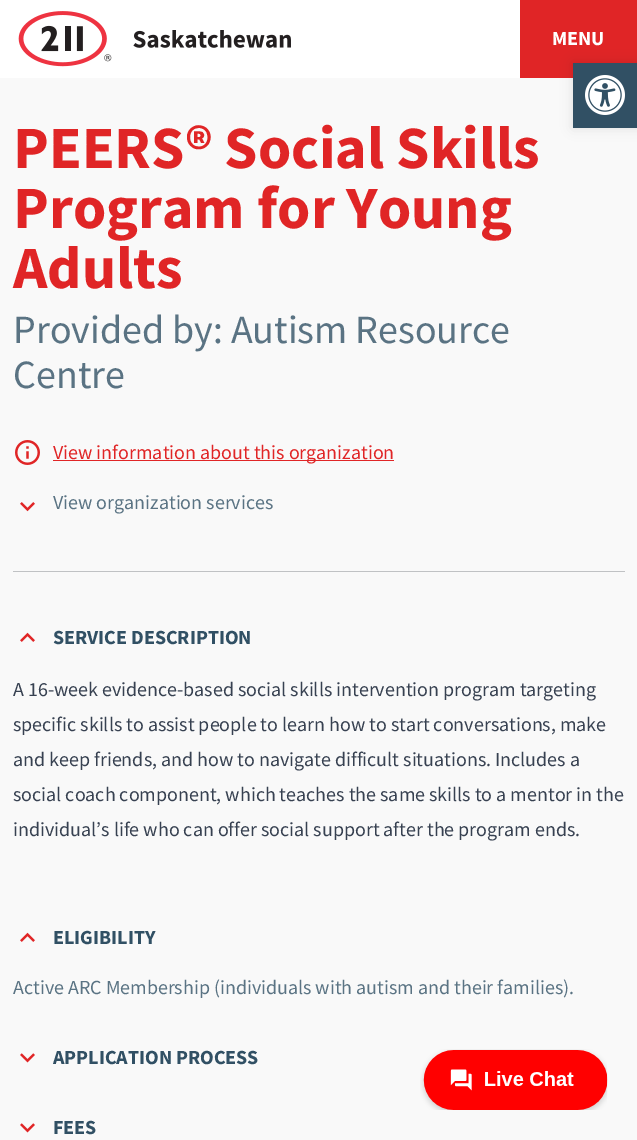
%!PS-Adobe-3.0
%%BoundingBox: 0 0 637 1140
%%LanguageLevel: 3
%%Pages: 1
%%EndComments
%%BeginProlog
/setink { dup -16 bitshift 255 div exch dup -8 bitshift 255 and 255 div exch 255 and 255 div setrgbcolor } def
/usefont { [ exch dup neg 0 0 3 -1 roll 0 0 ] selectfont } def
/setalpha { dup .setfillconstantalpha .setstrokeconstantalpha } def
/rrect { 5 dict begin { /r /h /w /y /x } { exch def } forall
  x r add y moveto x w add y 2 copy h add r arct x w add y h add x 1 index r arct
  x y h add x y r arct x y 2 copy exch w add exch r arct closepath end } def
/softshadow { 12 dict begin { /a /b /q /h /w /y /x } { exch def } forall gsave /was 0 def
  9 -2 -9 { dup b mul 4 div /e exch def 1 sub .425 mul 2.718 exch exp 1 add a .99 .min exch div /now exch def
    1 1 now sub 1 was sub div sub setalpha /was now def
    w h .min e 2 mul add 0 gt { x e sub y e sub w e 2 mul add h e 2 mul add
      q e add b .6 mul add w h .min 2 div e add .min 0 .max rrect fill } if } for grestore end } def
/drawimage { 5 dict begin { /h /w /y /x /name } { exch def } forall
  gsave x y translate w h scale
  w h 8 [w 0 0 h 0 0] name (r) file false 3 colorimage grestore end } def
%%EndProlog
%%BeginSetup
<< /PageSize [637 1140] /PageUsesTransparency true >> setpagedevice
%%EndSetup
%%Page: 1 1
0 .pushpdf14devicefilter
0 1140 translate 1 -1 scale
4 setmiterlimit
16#F9F9F9 setink
0 0 637 1140 rectfill
16#FFFFFF setink
0 0 520 78 rectfill
(img1.raw) 18 11 273 56 drawimage
16#E02526 setink
520 0 117 78 rectfill
/SourceSansPro-Bold 20 usefont
16#FFFFFF setink
552 45 moveto (MENU) show
/SourceSansPro-Bold 60 usefont
16#E02526 setink
[
    [(PEERS® Social Skills) 13 168]
    [(Program for Young) 13 228]
    [(Adults) 13 288]
] { aload pop moveto show } forall
/SourceSansPro-Regular 40 usefont
16#5A7383 setink
13 343 moveto (Provided by: Autism Resource) show
13 388 moveto (Centre) show
(img2.raw) 15 440 25 25 drawimage
16#E02526 setink
53 460 341 1 rectfill
/SourceSansPro-Regular 20 usefont
53 459 moveto (View information about this organization) show
(img3.raw) 20 502 15 10 drawimage
16#5A7383 setink
53 509 moveto (View organization services) show
16#C0C2C4 setink
13 571 612 1 rectfill
(img4.raw) 20 632 15 10 drawimage
/SourceSansPro-Bold 20 usefont
16#315064 setink
53 644 moveto (SERVICE DESCRIPTION) show
/SourceSansPro-Regular 20 usefont
16#374151 setink
[
    [(A 16-week evidence-based social skills intervention program targeting) 13 696]
    [(specific skills to assist people to learn how to start conversations, make) 13 731]
    [(and keep friends, and how to navigate difficult situations. Includes a) 13 766]
    [(social coach component, which teaches the same skills to a mentor in the) 13 801]
    [(individual’s life who can offer social support after the program ends.) 13 836]
] { aload pop moveto show } forall
(img4.raw) 20 932 15 10 drawimage
/SourceSansPro-Bold 20 usefont
16#315064 setink
53 944 moveto (ELIGIBILITY) show
/SourceSansPro-Regular 20 usefont
16#5A7383 setink
13 994 moveto (Active ARC Membership \(individuals with autism and their families\).) show
(img5.raw) 20 1053 15 10 drawimage
/SourceSansPro-Bold 20 usefont
16#315064 setink
53 1064 moveto (APPLICATION PROCESS) show
(img5.raw) 20 1123 15 10 drawimage
53 1134 moveto (FEES) show
16#000000 setink
573 63 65 65 0 6 0.1 softshadow
16#315064 setink
573 63 64 65 rectfill
(img6.raw) 585 75 40 40 drawimage
(img7.raw) 420 1049 188 61 drawimage
.poppdf14devicefilter showpage
%%EOF
